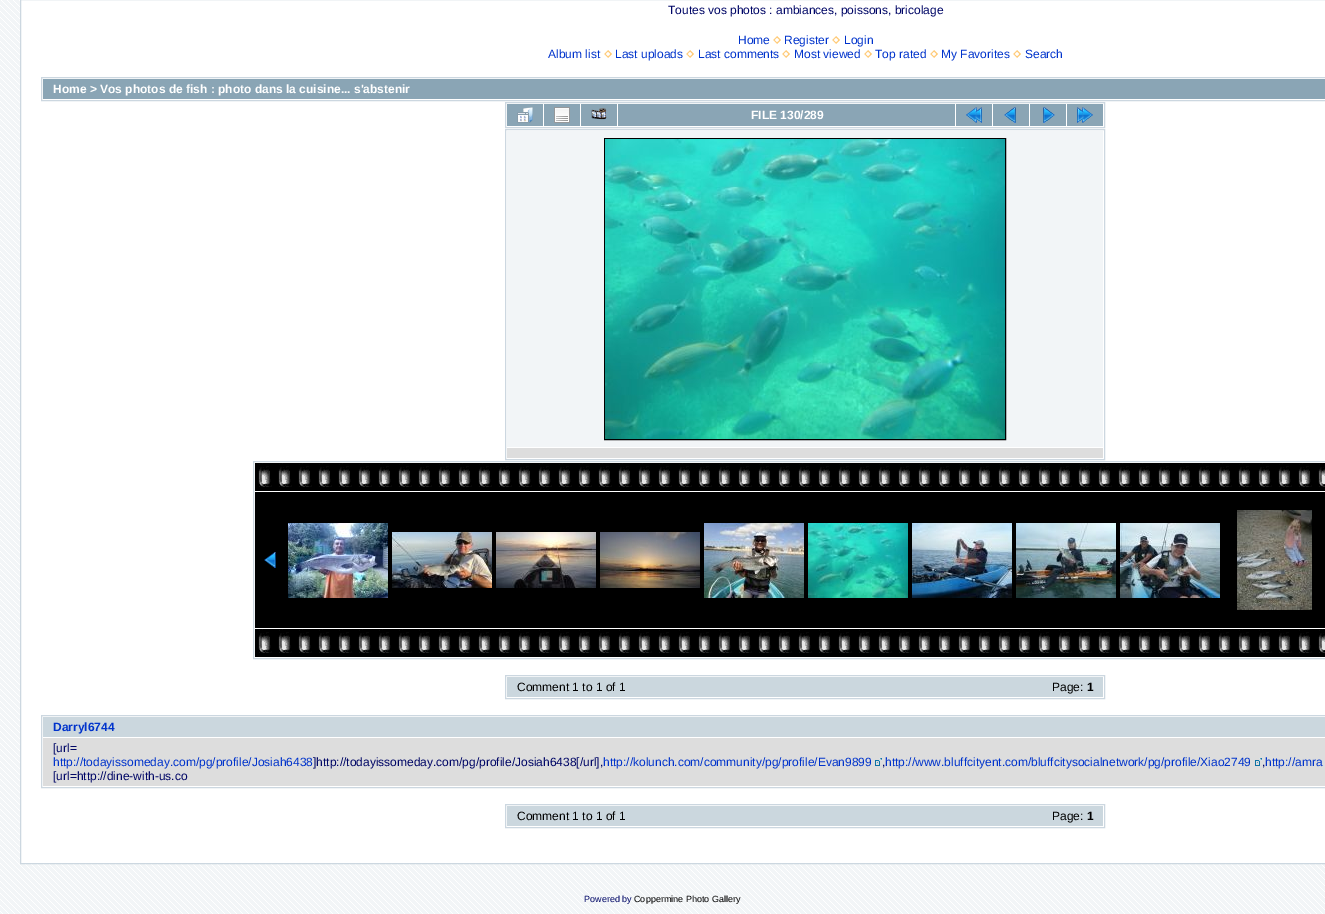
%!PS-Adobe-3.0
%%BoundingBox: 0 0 1325 914
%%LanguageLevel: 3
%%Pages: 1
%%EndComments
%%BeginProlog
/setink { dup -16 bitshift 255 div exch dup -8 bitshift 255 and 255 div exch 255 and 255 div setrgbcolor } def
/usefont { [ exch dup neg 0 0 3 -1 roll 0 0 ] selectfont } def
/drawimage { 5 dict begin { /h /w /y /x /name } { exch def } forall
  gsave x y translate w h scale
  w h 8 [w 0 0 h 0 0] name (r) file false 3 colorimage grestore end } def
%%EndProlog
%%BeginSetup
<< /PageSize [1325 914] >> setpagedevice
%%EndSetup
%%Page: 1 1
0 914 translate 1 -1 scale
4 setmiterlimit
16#F2F5F7 setink
0 0 1325 914 rectfill
(img1.raw) 0 0 1325 914 drawimage
16#FFFFFF setink
20.5 -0.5 moveto 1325.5 -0.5 lineto 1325.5 863.5 lineto 20.5 863.5 lineto closepath gsave fill grestore
16#CCD7E0 setink
stroke
/LiberationSans-Regular 12 usefont
16#000666 setink
668 14 moveto (Toutes vos photos : ambiances, poissons, bricolage) show
16#0033CC setink
738 44 moveto (Home) show
(img2.raw) 773 36 8 8 drawimage
784 44 moveto (Register) show
(img2.raw) 832 36 8 8 drawimage
844 44 moveto (Login) show
548 58 moveto (Album list) show
(img2.raw) 604 50 8 8 drawimage
615 58 moveto (Last uploads) show
(img2.raw) 686 50 8 8 drawimage
698 58 moveto (Last comments) show
(img2.raw) 782 50 8 8 drawimage
794 58 moveto (Most viewed) show
(img2.raw) 864 50 8 8 drawimage
875 58 moveto (Top rated) show
(img2.raw) 930 50 8 8 drawimage
941 58 moveto (My Favorites) show
(img2.raw) 1013 50 8 8 drawimage
1025 58 moveto (Search) show
16#CCD7E0 setink
41.5 77.5 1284 23 rectstroke
16#8AA5B5 setink
43 79 1282 20 rectfill
/LiberationSans-Bold 12 usefont
16#FFFFFF setink
53 93 moveto (Home > Vos photos de fish : photo dans la cuisine... s'abstenir) show
16#CCD7E0 setink
505.5 102.5 599 25 rectstroke
16#8AA5B5 setink
507 104 36 22 rectfill
(img3.raw) 517 107 16 16 drawimage
544 104 36 22 rectfill
(img4.raw) 554 107 16 16 drawimage
581 104 36 22 rectfill
(img5.raw) 591 108 16 12 drawimage
618 104 337 22 rectfill
16#FFFFFF setink
751 119 moveto (FILE 130/289) show
16#8AA5B5 setink
956 104 36 22 rectfill
(img6.raw) 966 107 16 16 drawimage
993 104 36 22 rectfill
(img7.raw) 1004 107 12 16 drawimage
1030 104 36 22 rectfill
(img8.raw) 1043 107 12 16 drawimage
1067 104 36 22 rectfill
(img9.raw) 1077 107 16 16 drawimage
16#CCD7E0 setink
505.5 129.5 599 330 rectstroke
16#F2F5F7 setink
507 131 596 316 rectfill
16#000000 setink
604.5 138.5 401 301 rectstroke
(img10.raw) 605 139 400 300 drawimage
16#DDDDDD setink
507 448 596 10 rectfill
16#CCD7E0 setink
253.5 461.5 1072 197 rectstroke
16#000000 setink
255 463 1070 28 rectfill
(img11.raw) 258 463 1067 24 drawimage
255 492 1070 136 rectfill
(img12.raw) 264 552 12 16 drawimage
(img13.raw) 288 523 100 75 drawimage
(img14.raw) 392 532 100 56 drawimage
(img15.raw) 496 532 100 56 drawimage
(img16.raw) 600 532 100 56 drawimage
(img17.raw) 704 523 100 75 drawimage
(img18.raw) 808 523 100 75 drawimage
(img19.raw) 912 523 100 75 drawimage
(img20.raw) 1016 523 100 75 drawimage
(img21.raw) 1120 523 100 75 drawimage
(img22.raw) 1237 510 75 100 drawimage
255 629 1070 28 rectfill
(img11.raw) 258 629 1067 24 drawimage
16#CCD7E0 setink
505.5 675.5 599 23 rectstroke
16#CBD7DE setink
507 677 596 20 rectfill
/LiberationSans-Regular 12 usefont
16#000000 setink
517 691 moveto (Comment 1 to 1 of 1) show
1052 691 moveto (Page:) show
/LiberationSans-Bold 12 usefont
1087 691 moveto (1) show
16#CCD7E0 setink
41.5 715.5 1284 72 rectstroke
16#CBD7DE setink
43 717 1282 20 rectfill
16#0033CC setink
53 731 moveto (Darryl6744) show
16#DDDDDD setink
43 738 1282 48 rectfill
/LiberationSans-Regular 12 usefont
16#000666 setink
53 752 moveto ([url=) show
16#0033CC setink
53 766 moveto (http://todayissomeday.com/pg/profile/Josiah6438) show
16#000666 setink
313 766 moveto (]http://todayissomeday.com/pg/profile/Josiah6438[/url],) show
16#0033CC setink
603 766 moveto (http://kolunch.com/community/pg/profile/Evan9899) show
(img23.raw) 875 758 7 8 drawimage
16#000666 setink
882 766 moveto (,) show
16#0033CC setink
885 766 moveto (http://www.bluffcityent.com/bluffcitysocialnetwork/pg/profile/Xiao2749) show
(img23.raw) 1255 758 7 8 drawimage
16#000666 setink
1262 766 moveto (,) show
16#0033CC setink
1265 766 moveto (http://amra) show
16#000666 setink
53 780 moveto ([url=http://dine-with-us.co) show
16#CCD7E0 setink
505.5 804.5 599 23 rectstroke
16#CBD7DE setink
507 806 596 20 rectfill
16#000000 setink
517 820 moveto (Comment 1 to 1 of 1) show
1052 820 moveto (Page:) show
/LiberationSans-Bold 12 usefont
1087 820 moveto (1) show
/LiberationSans-Regular 9 usefont
16#000666 setink
584 902 moveto (Powered by) show
16#000000 setink
634 902 moveto (Coppermine Photo Gallery) show
showpage
%%EOF
